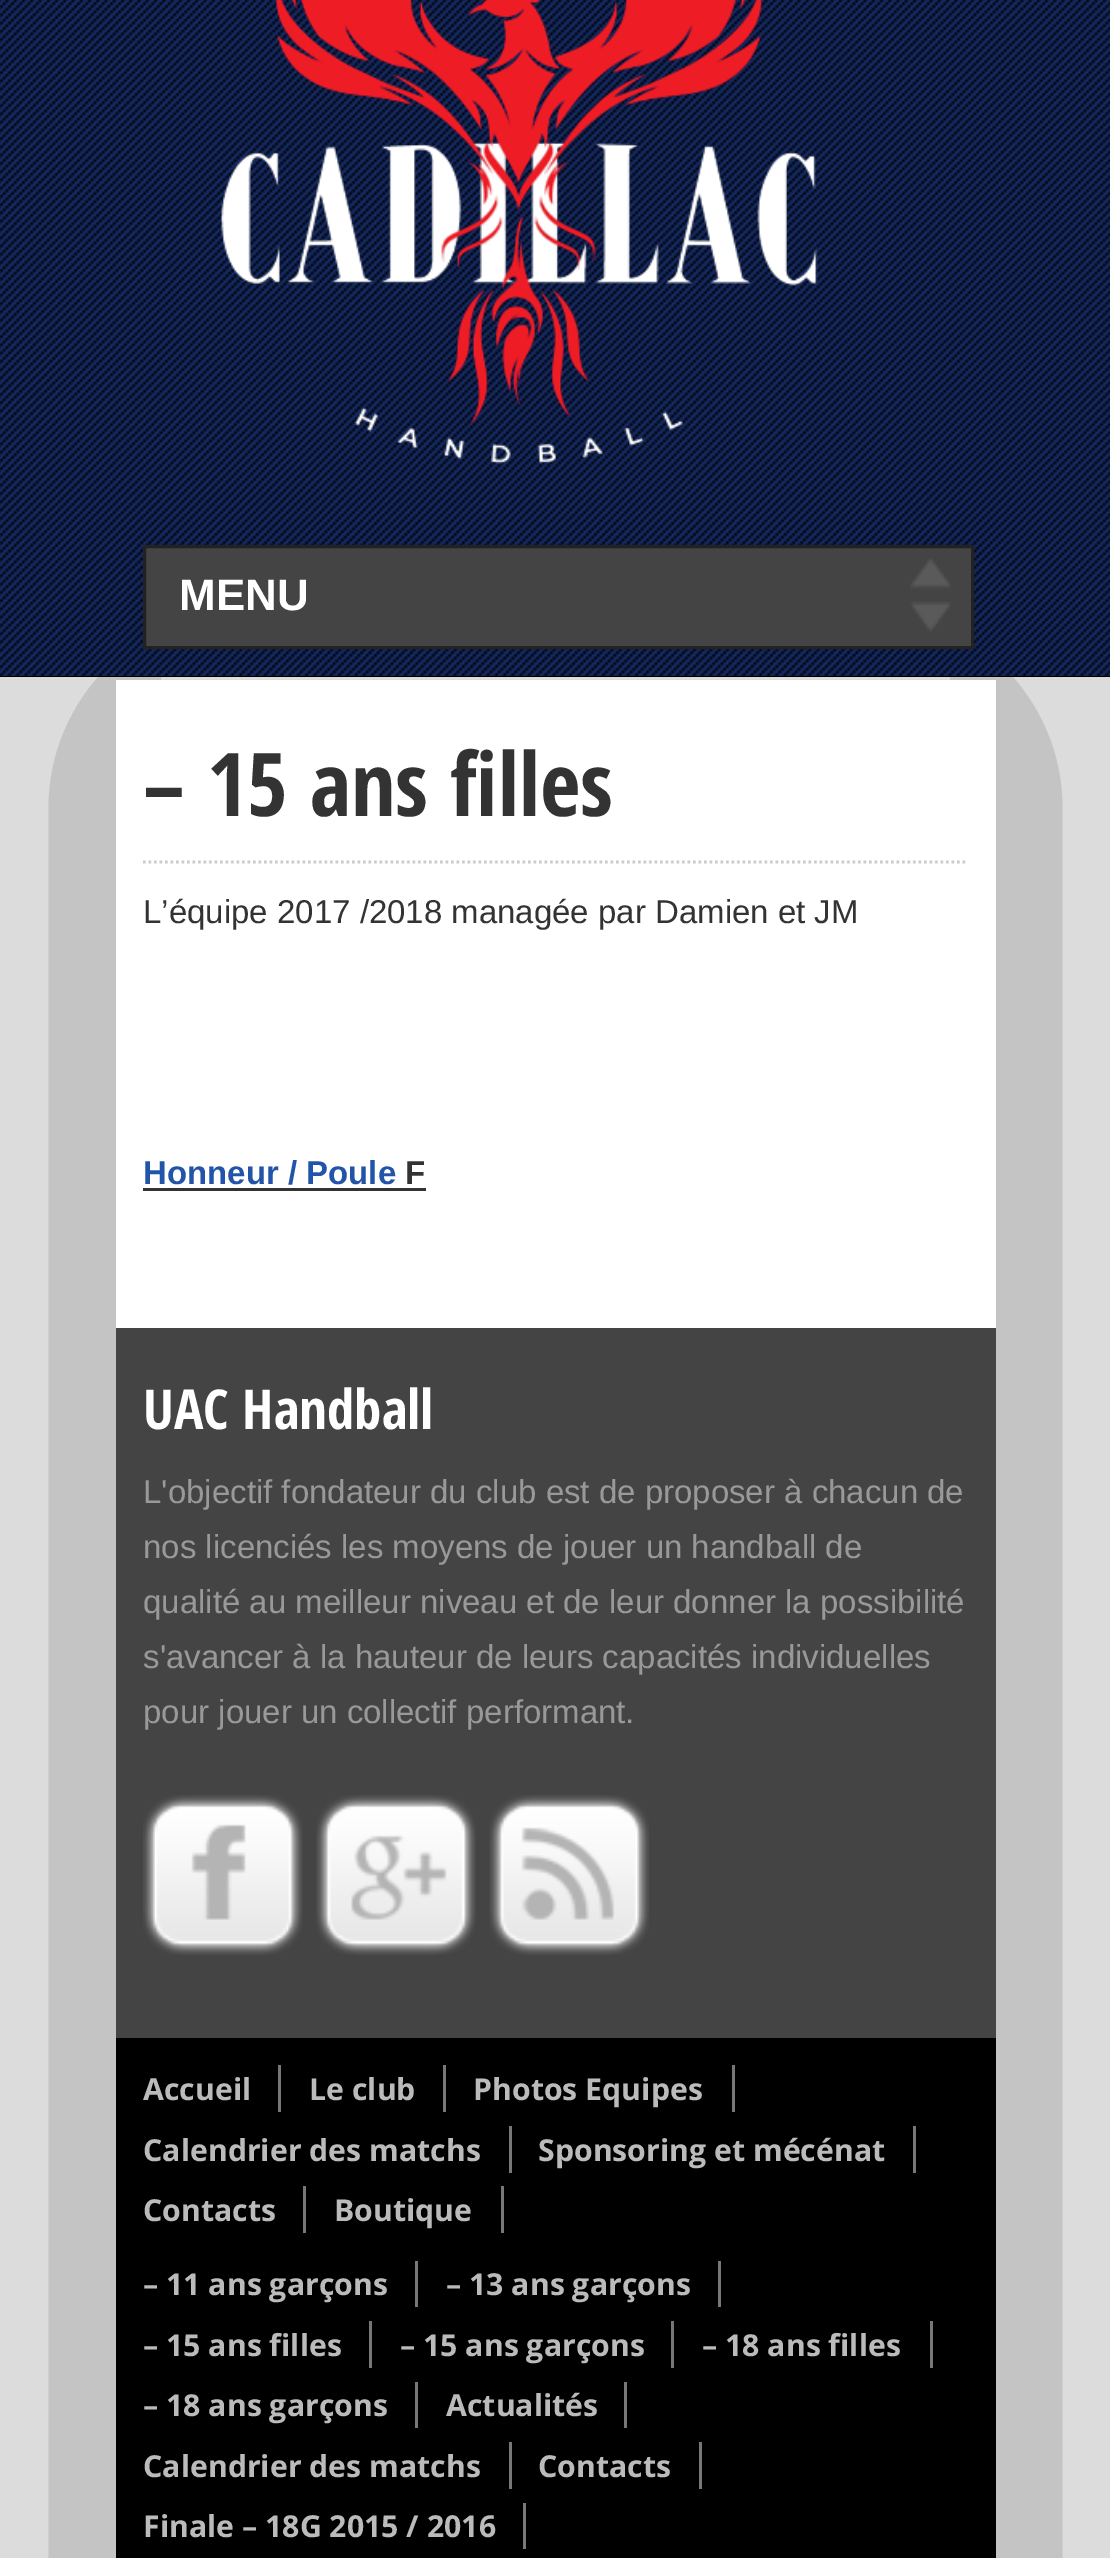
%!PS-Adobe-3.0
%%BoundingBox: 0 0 1110 2558
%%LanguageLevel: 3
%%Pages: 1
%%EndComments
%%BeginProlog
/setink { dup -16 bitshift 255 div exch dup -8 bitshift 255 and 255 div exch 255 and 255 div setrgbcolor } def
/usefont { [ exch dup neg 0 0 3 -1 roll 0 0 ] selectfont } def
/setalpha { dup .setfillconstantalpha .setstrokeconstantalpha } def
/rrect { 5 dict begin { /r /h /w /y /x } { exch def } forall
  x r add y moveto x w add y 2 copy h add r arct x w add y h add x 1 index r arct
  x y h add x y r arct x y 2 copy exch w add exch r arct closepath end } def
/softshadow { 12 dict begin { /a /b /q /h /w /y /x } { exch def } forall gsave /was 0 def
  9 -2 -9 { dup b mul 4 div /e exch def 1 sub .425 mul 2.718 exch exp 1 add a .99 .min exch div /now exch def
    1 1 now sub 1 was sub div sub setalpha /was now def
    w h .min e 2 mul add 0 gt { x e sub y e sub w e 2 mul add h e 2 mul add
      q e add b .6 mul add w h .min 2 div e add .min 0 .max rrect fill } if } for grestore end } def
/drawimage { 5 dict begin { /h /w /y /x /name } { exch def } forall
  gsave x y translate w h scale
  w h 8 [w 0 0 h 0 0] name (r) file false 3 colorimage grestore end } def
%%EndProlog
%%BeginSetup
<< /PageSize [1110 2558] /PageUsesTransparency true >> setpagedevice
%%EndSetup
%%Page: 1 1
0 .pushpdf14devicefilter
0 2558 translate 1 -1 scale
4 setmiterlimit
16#FFFFFF setink
0 0 1110 2558 rectfill
16#888888 setink
107 668 897 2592 0 234 1 softshadow
16#000000 setink
0 676 1110 1 rectfill
(img1.raw) 0 0 1110 676 drawimage
(img2.raw) 220 0 598 464 drawimage
16#444444 setink
146 548 825 98 rectfill
(img3.raw) 910 558 41 74 drawimage
16#222222 setink
3 setlinewidth
144.5 546.5 828 101 rectstroke
/LiberationSans-Bold 44 usefont
16#FFFFFF setink
179 610 moveto (MENU) show
116 680 880 648 rectfill
16#DDDDDD setink
161 677 789 3 rectfill
16#CCCCCC setink
2.8 setlinewidth
[2.75 2.75] 0 setdash
143 862 moveto 968 862 lineto stroke
/OpenSansCondensed-Bold 88 usefont
16#333333 setink
143 816 moveto (– 15 ans filles) show
/LiberationSans-Regular 33 usefont
143 923 moveto (L’équipe 2017 /2018 managée par Damien et JM) show
/LiberationSans-Bold 33 usefont
16#2255AA setink
143 1184 moveto (Honneur / Poule) show
16#333333 setink
143 1188 283 3 rectfill
405 1184 moveto (F) show
16#444444 setink
116 1328 880 710 rectfill
/OpenSansCondensed-Bold 55 usefont
16#FFFFFF setink
143 1429 moveto (UAC Handball) show
/LiberationSans-Regular 33 usefont
16#999999 setink
[
    [(L'objectif fondateur du club est de proposer à chacun de) 143 1503]
    [(nos licenciés les moyens de jouer un handball de) 143 1558]
    [(qualité au meilleur niveau et de leur donner la possibilité) 143 1613]
    [(s'avancer à la hauteur de leurs capacités individuelles) 143 1668]
    [(pour jouer un collectif performant.) 143 1723]
] { aload pop moveto show } forall
(img4.raw) 143 1795 160 160 drawimage
(img5.raw) 316 1795 160 160 drawimage
(img6.raw) 489 1795 160 160 drawimage
16#000000 setink
116 2038 880 520 rectfill
16#777777 setink
278 2065 3 47 rectfill
/OpenSans-Bold 30.25 usefont
16#BBBBBB setink
143 2100 moveto (Accueil) show
16#777777 setink
443 2065 3 47 rectfill
16#BBBBBB setink
309 2100 moveto (Le club) show
16#777777 setink
732 2065 3 47 rectfill
16#BBBBBB setink
473 2100 moveto (Photos Equipes) show
16#777777 setink
509 2126 3 47 rectfill
16#BBBBBB setink
143 2161 moveto (Calendrier des matchs) show
16#777777 setink
913 2126 3 47 rectfill
16#BBBBBB setink
538 2161 moveto (Sponsoring et mécénat) show
16#777777 setink
303 2186 3 47 rectfill
16#BBBBBB setink
143 2221 moveto (Contacts) show
16#777777 setink
501 2186 3 47 rectfill
16#BBBBBB setink
334 2221 moveto (Boutique) show
16#777777 setink
415 2261 3 46 rectfill
16#BBBBBB setink
143 2295 moveto (– 11 ans garçons) show
16#777777 setink
718 2261 3 46 rectfill
16#BBBBBB setink
446 2295 moveto (– 13 ans garçons) show
16#777777 setink
369 2321 3 47 rectfill
16#BBBBBB setink
143 2356 moveto (– 15 ans filles) show
16#777777 setink
671 2321 3 47 rectfill
16#BBBBBB setink
400 2356 moveto (– 15 ans garçons) show
16#777777 setink
930 2321 3 47 rectfill
16#BBBBBB setink
702 2356 moveto (– 18 ans filles) show
16#777777 setink
415 2382 3 46 rectfill
16#BBBBBB setink
143 2416 moveto (– 18 ans garçons) show
16#777777 setink
624 2382 3 46 rectfill
16#BBBBBB setink
446 2416 moveto (Actualités) show
16#777777 setink
509 2442 3 47 rectfill
16#BBBBBB setink
143 2477 moveto (Calendrier des matchs) show
16#777777 setink
699 2442 3 47 rectfill
16#BBBBBB setink
538 2477 moveto (Contacts) show
16#777777 setink
523 2503 3 46 rectfill
16#BBBBBB setink
143 2537 moveto (Finale – 18G 2015 / 2016) show
.poppdf14devicefilter showpage
%%EOF
